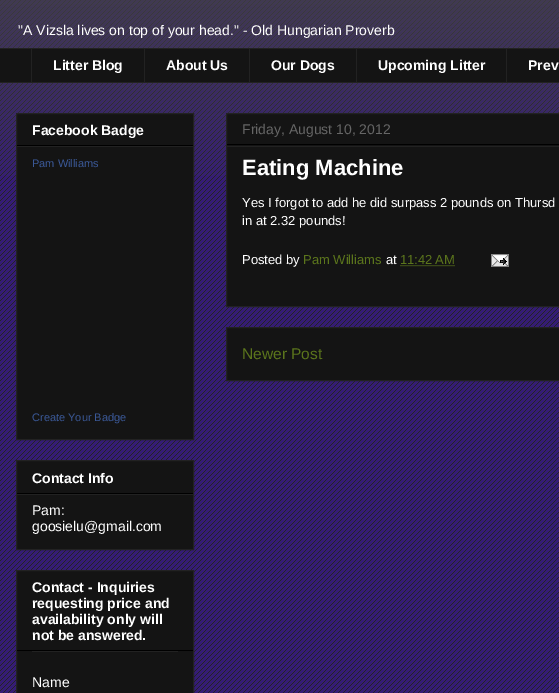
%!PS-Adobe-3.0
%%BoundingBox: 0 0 559 693
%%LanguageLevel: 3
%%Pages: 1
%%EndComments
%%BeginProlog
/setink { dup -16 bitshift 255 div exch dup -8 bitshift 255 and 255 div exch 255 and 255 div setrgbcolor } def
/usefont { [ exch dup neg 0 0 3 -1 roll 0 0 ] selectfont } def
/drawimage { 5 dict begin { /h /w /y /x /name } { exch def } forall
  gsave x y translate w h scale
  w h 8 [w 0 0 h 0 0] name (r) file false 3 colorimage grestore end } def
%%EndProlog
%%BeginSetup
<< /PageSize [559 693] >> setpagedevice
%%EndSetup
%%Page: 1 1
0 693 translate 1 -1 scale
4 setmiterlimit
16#351C75 setink
0 0 559 693 rectfill
(img1.raw) 0 0 559 693 drawimage
(img2.raw) 0 0 559 176 drawimage
/LiberationSans-Regular 14 usefont
16#FFFFFF setink
18 35 moveto ("A Vizsla lives on top of your head." - Old Hungarian Proverb) show
[
    [0 49 559 33 16#141414]
    [0 48 559 1 16#222222]
    [31 48 1 35 16#222222]
] { aload pop setink rectfill } forall
/LiberationSans-Bold 14 usefont
16#FFFFFF setink
53 70 moveto (Litter Blog) show
16#222222 setink
144 48 1 35 rectfill
16#FFFFFF setink
166 70 moveto (About Us) show
16#222222 setink
249 48 1 35 rectfill
16#FFFFFF setink
271 70 moveto (Our Dogs) show
16#222222 setink
356 48 1 35 rectfill
16#FFFFFF setink
378 70 moveto (Upcoming Litter) show
16#222222 setink
506 48 1 35 rectfill
16#FFFFFF setink
528 70 moveto (Prev) show
16#222222 setink
0 82 559 1 rectfill
16#141414 setink
16.5 113.5 moveto 193.5 113.5 lineto 193.5 439.5 lineto 16.5 439.5 lineto closepath gsave fill grestore
16#222222 setink
stroke
16#000000 setink
17 145 176 1 rectfill
16#FFFFFF setink
32 135 moveto (Facebook Badge) show
16#222222 setink
17 146 176 1 rectfill
/LiberationSans-Regular 11 usefont
16#3B5998 setink
32 167 moveto (Pam Williams) show
32 421 moveto (Create Your Badge) show
16#141414 setink
16.5 460.5 moveto 193.5 460.5 lineto 193.5 549.5 lineto 16.5 549.5 lineto closepath gsave fill grestore
16#222222 setink
stroke
16#000000 setink
17 493 176 1 rectfill
/LiberationSans-Bold 14 usefont
16#FFFFFF setink
32 483 moveto (Contact Info) show
16#222222 setink
17 494 176 1 rectfill
/LiberationSans-Regular 14 usefont
16#FFFFFF setink
32 515 moveto (Pam:) show
32 531 moveto (goosielu@gmail.com) show
16#141414 setink
16.5 570.5 moveto 193.5 570.5 lineto 193.5 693.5 lineto 16.5 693.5 lineto closepath gsave fill grestore
16#222222 setink
stroke
16#000000 setink
17 650 176 1 rectfill
/LiberationSans-Bold 14 usefont
16#FFFFFF setink
[
    [(Contact - Inquiries) 32 592]
    [(requesting price and) 32 608]
    [(availability only will) 32 624]
    [(not be answered.) 32 640]
] { aload pop moveto show } forall
16#222222 setink
32 651 146 1 rectfill
/LiberationSans-Regular 14 usefont
16#FFFFFF setink
32 687 moveto (Name) show
16#141414 setink
226.5 113.5 moveto 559.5 113.5 lineto 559.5 306.5 lineto 226.5 306.5 lineto closepath gsave fill grestore
16#222222 setink
stroke
16#000000 setink
227 144 332 1 rectfill
16#666666 setink
242 134 moveto (Friday, August 10, 2012) show
16#222222 setink
227 146 332 1 rectfill
/LiberationSans-Bold 22 usefont
16#FFFFFF setink
242 175 moveto (Eating Machine) show
/LiberationSans-Regular 13 usefont
[
    [(Yes I forgot to add he did surpass 2 pounds on Thursd) 242 207]
    [(in at 2.32 pounds!) 242 225]
    [(Posted by) 242 264]
] { aload pop moveto show } forall
16#5B751C setink
303 264 moveto (Pam Williams) show
16#FFFFFF setink
386 264 moveto (at) show
16#5B751C setink
400 264 moveto (11:42 AM) show
[1 1] 0 setdash
400.5 265.5 moveto 455 265.5 lineto stroke
(img3.raw) 491 254 18 13 drawimage
16#141414 setink
226.5 327.5 moveto 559.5 327.5 lineto 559.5 380.5 lineto 226.5 380.5 lineto closepath gsave fill grestore
16#222222 setink
[] 0 setdash
stroke
/LiberationSans-Regular 15.5 usefont
16#5B751C setink
242 359 moveto (Newer Post) show
showpage
%%EOF
